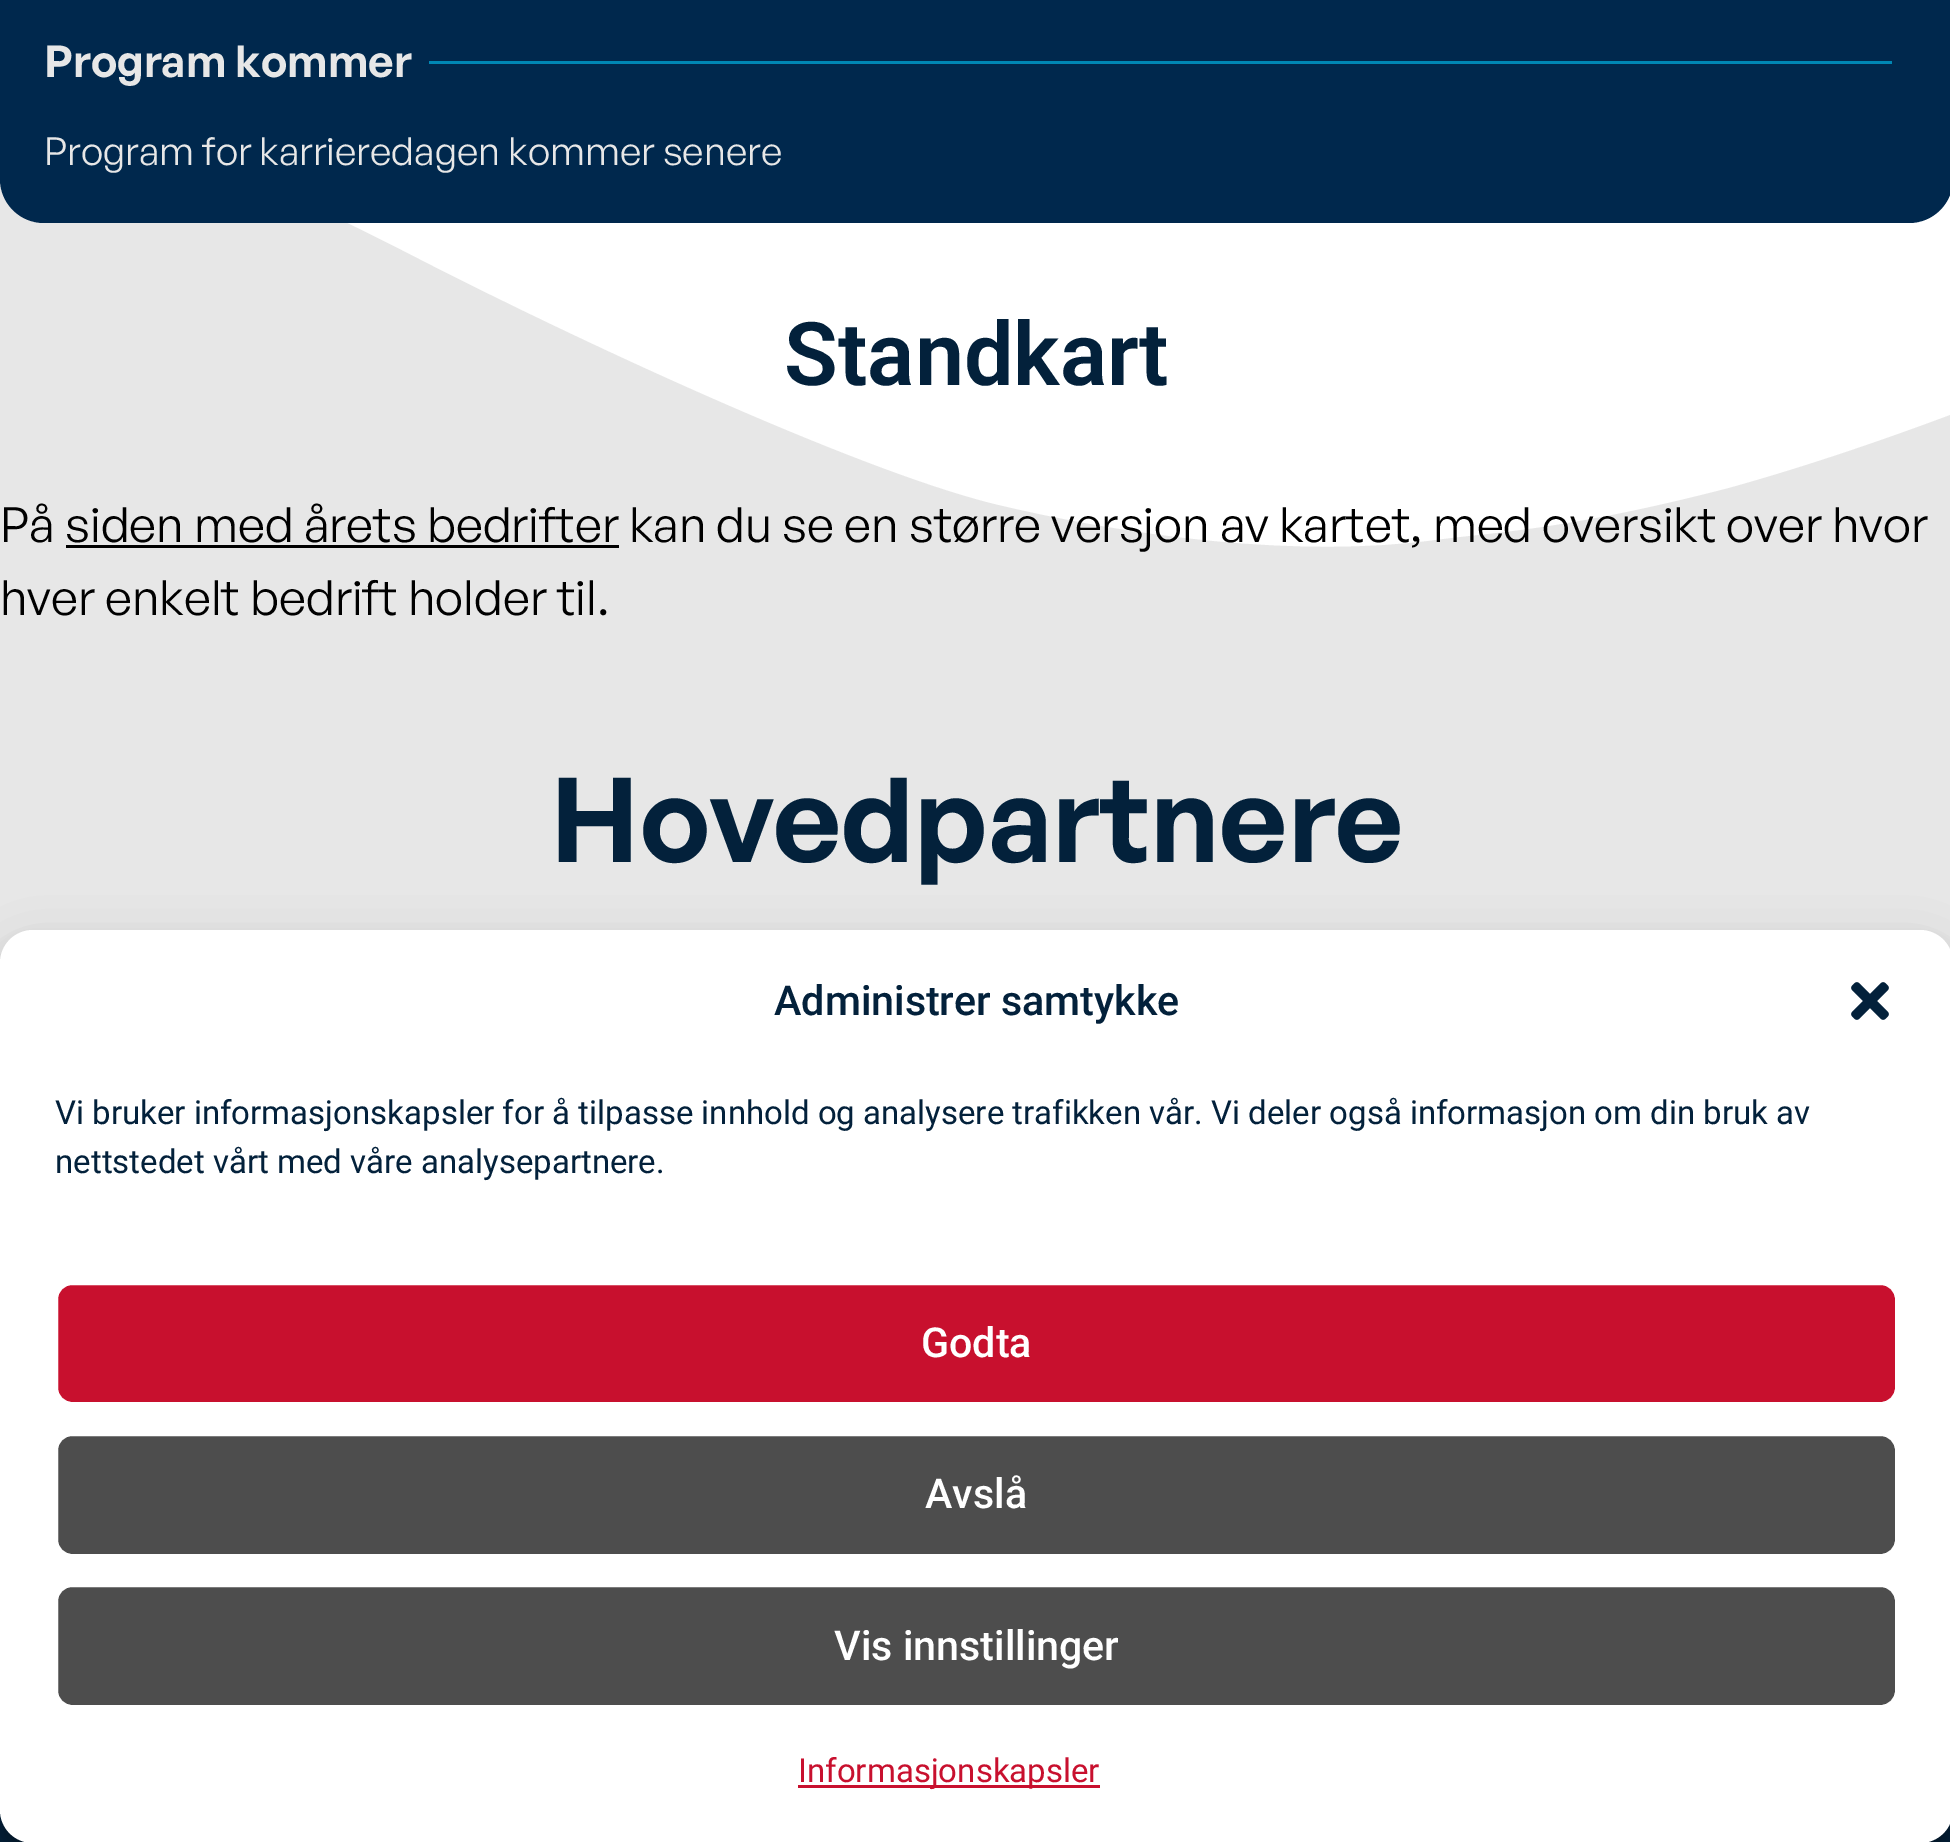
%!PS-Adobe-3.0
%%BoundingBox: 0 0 1950 1842
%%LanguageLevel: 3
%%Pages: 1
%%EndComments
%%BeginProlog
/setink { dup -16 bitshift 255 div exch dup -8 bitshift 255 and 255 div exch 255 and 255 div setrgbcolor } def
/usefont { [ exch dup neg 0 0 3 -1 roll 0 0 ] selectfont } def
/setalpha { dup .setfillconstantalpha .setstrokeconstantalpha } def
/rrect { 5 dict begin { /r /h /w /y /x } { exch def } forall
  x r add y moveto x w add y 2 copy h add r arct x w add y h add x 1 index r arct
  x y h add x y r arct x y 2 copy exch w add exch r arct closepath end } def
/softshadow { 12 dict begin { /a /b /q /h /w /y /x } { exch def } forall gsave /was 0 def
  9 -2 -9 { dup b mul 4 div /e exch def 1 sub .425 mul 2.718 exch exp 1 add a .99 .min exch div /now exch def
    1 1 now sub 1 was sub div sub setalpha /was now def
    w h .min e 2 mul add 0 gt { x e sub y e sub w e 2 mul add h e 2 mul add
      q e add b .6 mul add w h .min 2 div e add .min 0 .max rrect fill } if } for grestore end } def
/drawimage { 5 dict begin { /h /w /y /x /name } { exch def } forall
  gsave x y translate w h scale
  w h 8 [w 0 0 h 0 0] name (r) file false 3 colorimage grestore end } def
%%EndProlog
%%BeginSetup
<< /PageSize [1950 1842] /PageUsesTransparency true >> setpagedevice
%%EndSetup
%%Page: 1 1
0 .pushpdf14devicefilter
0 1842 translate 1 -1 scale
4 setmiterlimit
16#E7E7E7 setink
0 0 1950 1842 rectfill
16#FFFFFF setink
-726 -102 moveto -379 -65 -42 25 402 250 curveto 576 340 853 468 991 503 curveto 1130 537 1300 558 1434 540 curveto 1494 532 1566 530 1728 488 curveto 1887 444 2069 371 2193 314 curveto 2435 202 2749 160 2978 155 curveto 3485 144 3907 372 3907 372 curveto 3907 -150 lineto -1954 -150 lineto -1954 94 lineto -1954 94 -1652 -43 -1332 -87 curveto -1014 -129 -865 -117 -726 -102 curveto closepath fill
16#00284D setink
0 -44 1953 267 44 rrect fill
/GeneralSans-SemiBold 44 usefont
16#E7E7E7 setink
44 77 moveto (Program kommer) show
16#0087B4 setink
429 61 1463 3 rectfill
/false-Regular 38.5 usefont
16#E7E7E7 setink
44 165 moveto (Program for karrieredagen kommer senere) show
/Roboto-SemiBold 88 usefont
16#03213B setink
784 385 moveto (Standkart) show
/false-Regular 48.4 usefont
16#000000 setink
0 542 moveto (På siden med årets bedrifter kan du se en større versjon av kartet, med oversikt over hvor) show
66 545 553 3 rectfill
0 615 moveto (hver enkelt bedrift holder til.) show
/GeneralSans-SemiBold 117.5 usefont
16#03213B setink
550 862 moveto (Hovedpartnere) show
0 1810 1950 32 rectfill
16#000000 setink
0 946 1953 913 33 8 0.23 softshadow
0 957 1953 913 33 27.5 0.19 softshadow
16#FFFFFF setink
0 930 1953 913 33 rrect fill
/Roboto-Medium 41.25 usefont
16#03213B setink
774 1015 moveto (Administrer samtykke) show
(img1.raw) 1851 982 38 38 drawimage
/Roboto-Regular 33 usefont
55 1124 moveto (Vi bruker informasjonskapsler for å tilpasse innhold og analysere trafikken vår. Vi deler også informasjon om din bruk av) show
55 1173 moveto (nettstedet vårt med våre analysepartnere.) show
16#C8102E setink
56.5 1283.5 1840 120 15.5 rrect gsave fill grestore
16#FFFFFF setink
3 setlinewidth
stroke
/Roboto-Medium 41.25 usefont
921 1357 moveto (Godta) show
16#4D4D4D setink
56.5 1434.5 1840 121 15.5 rrect gsave fill grestore
16#FFFFFF setink
stroke
925 1508 moveto (Avslå) show
16#4D4D4D setink
56.5 1585.5 1840 121 15.5 rrect gsave fill grestore
16#FFFFFF setink
stroke
834 1660 moveto (Vis innstillinger) show
16#C8102E setink
798 1785 302 3 rectfill
/Roboto-Regular 33 usefont
798 1782 moveto (Informasjonskapsler) show
.poppdf14devicefilter showpage
%%EOF
